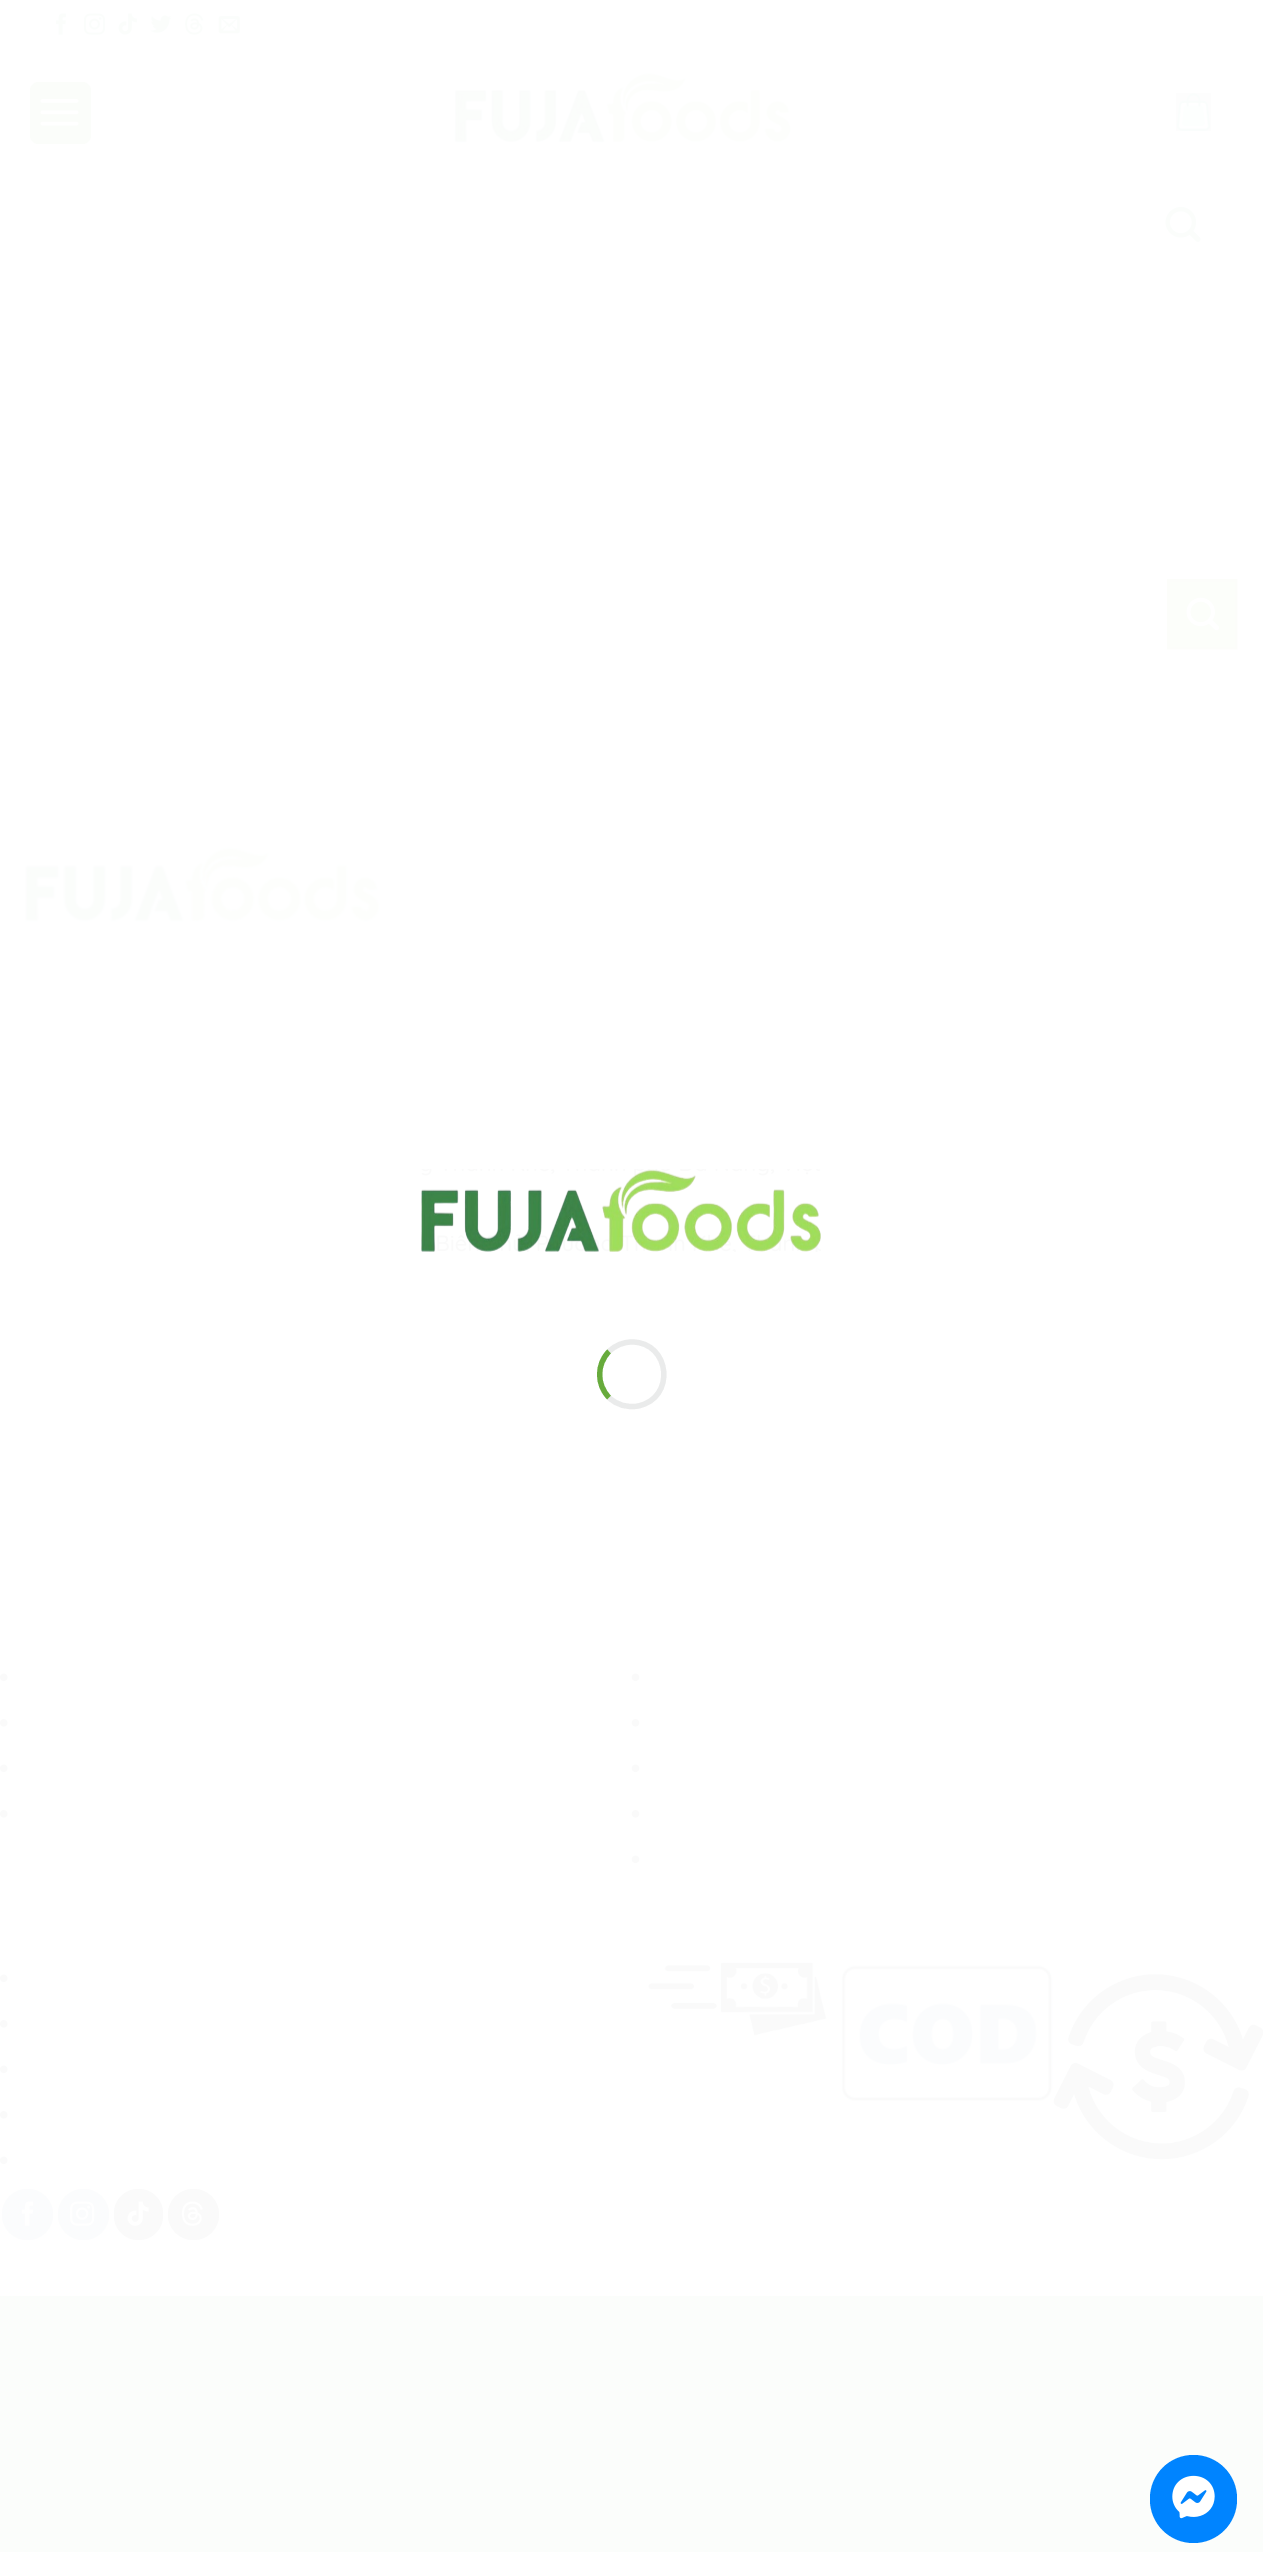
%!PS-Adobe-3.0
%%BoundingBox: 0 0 1263 2552
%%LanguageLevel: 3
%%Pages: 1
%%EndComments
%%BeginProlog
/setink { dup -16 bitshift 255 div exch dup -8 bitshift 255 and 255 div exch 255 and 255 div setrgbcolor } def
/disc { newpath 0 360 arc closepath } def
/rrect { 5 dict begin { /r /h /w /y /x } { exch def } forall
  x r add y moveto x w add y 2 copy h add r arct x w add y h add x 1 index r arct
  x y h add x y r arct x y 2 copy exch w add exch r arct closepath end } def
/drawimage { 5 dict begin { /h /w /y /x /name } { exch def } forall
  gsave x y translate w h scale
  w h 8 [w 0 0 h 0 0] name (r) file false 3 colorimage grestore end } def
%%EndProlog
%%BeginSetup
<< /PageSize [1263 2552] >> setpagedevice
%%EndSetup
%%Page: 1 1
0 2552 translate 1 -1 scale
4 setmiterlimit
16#FBFDFB setink
0 0 1263 2552 rectfill
16#FFFFFF setink
0 0 1263 2296 rectfill
(img1.raw) 56 13 10 22 drawimage
(img2.raw) 84 13 21 22 drawimage
(img3.raw) 118 13 19 22 drawimage
(img4.raw) 150 15 22 18 drawimage
(img5.raw) 185 13 19 22 drawimage
(img6.raw) 218 16 22 18 drawimage
16#FBFDFA setink
30 82 61 62 9 rrect fill
(img7.raw) 40 99 39 27 drawimage
(img8.raw) 454 73 337 70 drawimage
(img9.raw) 1176 93 35 38 drawimage
(img10.raw) 1165 206 36 36 drawimage
16#FCFEFA setink
1168 580 moveto 1236 580 lineto 1236 648 lineto 1168 648 lineto closepath gsave fill grestore
16#FCFDFA setink
2 setlinewidth
stroke
(img11.raw) 1186 597 34 34 drawimage
(img12.raw) 24 847 356 75 drawimage
(img13.raw) 0 1673 8 9 drawimage
(img14.raw) 0 1719 8 8 drawimage
(img13.raw) 0 1764 8 9 drawimage
(img14.raw) 0 1810 8 8 drawimage
(img15.raw) 631 1673 9 9 drawimage
(img16.raw) 631 1719 9 8 drawimage
(img15.raw) 631 1764 9 9 drawimage
(img16.raw) 631 1810 9 8 drawimage
(img15.raw) 631 1855 9 9 drawimage
(img13.raw) 0 1974 8 9 drawimage
(img14.raw) 0 2020 8 8 drawimage
(img13.raw) 0 2065 8 9 drawimage
(img14.raw) 0 2111 8 8 drawimage
(img13.raw) 0 2156 8 9 drawimage
16#FBFCFD setink
27.5 2214.5 25.5 disc fill
(img17.raw) 21 2201 13 25 drawimage
83.5 2214.5 25.5 disc fill
(img18.raw) 70 2201 25 25 drawimage
16#FAFAFA setink
114 2189 49 51 24.5 rrect fill
(img19.raw) 127 2201 22 25 drawimage
193.5 2214.5 25.5 disc fill
(img20.raw) 181 2201 22 25 drawimage
(img21.raw) 648 1962 179 74 drawimage
(img22.raw) 841 1965 212 136 drawimage
(img23.raw) 1053 1974 210 186 drawimage
(img24.raw) 421 1169 400 83 drawimage
16#EAEBEB setink
5.2 setlinewidth
609 1351.5 moveto 615 1345.5 623 1342 632 1342 curveto 670.5 1342 676 1398.5 638 1406 curveto 627.5 1408 616.5 1405 609 1397.5 curveto stroke
16#67AB3C setink
609 1397.5 moveto 596.5 1385 596.5 1364 609 1351.5 curveto stroke
16#0084FF setink
1150 2455 87 88 43.5 rrect fill
(img25.raw) 1172 2475 43 44 drawimage
showpage
%%EOF
